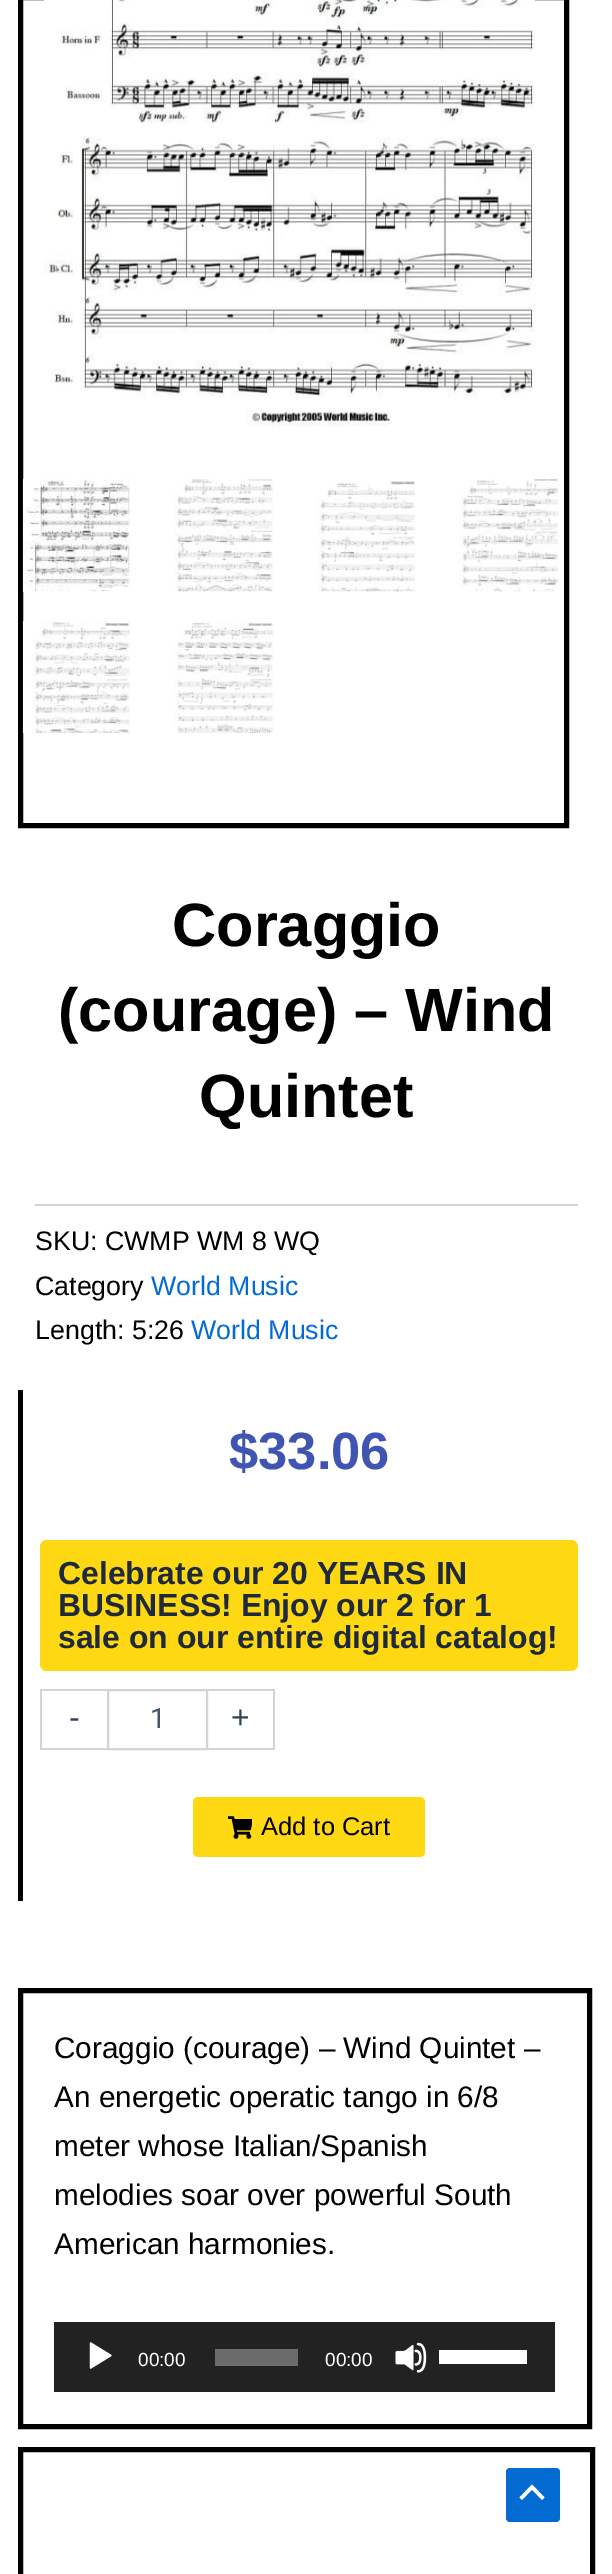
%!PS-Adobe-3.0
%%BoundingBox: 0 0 612 2574
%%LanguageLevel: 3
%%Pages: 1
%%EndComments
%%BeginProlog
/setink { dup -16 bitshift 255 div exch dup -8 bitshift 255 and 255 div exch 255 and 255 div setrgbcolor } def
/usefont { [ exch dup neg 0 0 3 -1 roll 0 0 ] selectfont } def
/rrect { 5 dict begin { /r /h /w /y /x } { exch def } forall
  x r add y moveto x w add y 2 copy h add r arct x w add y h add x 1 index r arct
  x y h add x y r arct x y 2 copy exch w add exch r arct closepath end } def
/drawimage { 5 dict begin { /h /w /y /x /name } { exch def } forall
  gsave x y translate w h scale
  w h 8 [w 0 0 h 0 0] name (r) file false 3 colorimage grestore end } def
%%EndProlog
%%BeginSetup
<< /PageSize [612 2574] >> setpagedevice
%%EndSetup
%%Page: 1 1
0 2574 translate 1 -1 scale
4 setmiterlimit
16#FFFFFF setink
0 0 612 2574 rectfill
16#000000 setink
5 setlinewidth
20.5 -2.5 546 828 rectstroke
(img1.raw) 44 0 491 427 drawimage
(img2.raw) 22 479 109 113 drawimage
(img3.raw) 174 479 100 113 drawimage
(img4.raw) 317 480 99 112 drawimage
(img5.raw) 459 479 100 113 drawimage
(img6.raw) 22 621 108 112 drawimage
(img7.raw) 174 621 100 112 drawimage
/LiberationSans-Bold 61.25 usefont
[
    [(Coraggio) 172 946]
    [(\(courage\) – Wind) 58 1031]
    [(Quintet) 199 1117]
] { aload pop moveto show } forall
16#D1D5DB setink
35 1204 543 2 rectfill
/LiberationSans-Regular 26.75 usefont
16#000000 setink
35 1250 moveto (SKU: CWMP WM 8 WQ) show
35 1295 moveto (Category) show
16#046BD2 setink
151 1295 moveto (World Music) show
16#000000 setink
35 1339 moveto (Length: 5:26) show
16#046BD2 setink
191 1339 moveto (World Music) show
16#000000 setink
18 1390 5 511 rectfill
/LiberationSans-Bold 52.5 usefont
16#4054B2 setink
229 1469 moveto ($33.06) show
16#FFD814 setink
40 1540 538 131 7 rrect fill
/LiberationSans-Bold 31.9 usefont
16#1E293B setink
[
    [(Celebrate our 20 YEARS IN) 58 1584]
    [(BUSINESS! Enjoy our 2 for 1) 58 1616]
    [(sale on our entire digital catalog!) 58 1648]
] { aload pop moveto show } forall
[
    [40 1689 67 2 16#D1D5DB]
    [40 1748 67 2 16#D1D5DB]
    [40 1689 2 61 16#D1D5DB]
] { aload pop setink rectfill } forall
/LiberationSans-Regular 32 usefont
16#334155 setink
69 1728 moveto (-) show
16#D1D5DB setink
2 setlinewidth
108 1690 99 59 rectstroke
/Roboto-Regular 28 usefont
16#475569 setink
150 1728 moveto (1) show
[
    [208 1689 67 2 16#D1D5DB]
    [273 1689 2 61 16#D1D5DB]
    [208 1748 67 2 16#D1D5DB]
] { aload pop setink rectfill } forall
/LiberationSans-Regular 32 usefont
16#334155 setink
231 1728 moveto (+) show
16#FFD814 setink
193 1797 232 60 5 rrect fill
(img8.raw) 228 1816 24 23 drawimage
/LiberationSans-Regular 25.5 usefont
16#000000 setink
261 1835 moveto (Add to Cart) show
5 setlinewidth
20.5 1990.5 569 436 rectstroke
/LiberationSans-Regular 29.75 usefont
[
    [(Coraggio \(courage\) – Wind Quintet –) 54 2058]
    [(An energetic operatic tango in 6/8) 54 2107]
    [(meter whose Italian/Spanish) 54 2156]
    [(melodies soar over powerful South) 54 2205]
    [(American harmonies.) 54 2254]
] { aload pop moveto show } forall
16#222222 setink
54 2322 501 70 rectfill
(img9.raw) 89 2342 23 27 drawimage
/LiberationSans-Regular 19 usefont
16#FFFFFF setink
138 2366 moveto (00:00) show
16#6B6B6B setink
215 2349 83 17 rectfill
16#FFFFFF setink
325 2366 moveto (00:00) show
(img10.raw) 395 2342 32 31 drawimage
439 2350 88 14 rectfill
16#000000 setink
20.5 2449.5 572 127 rectstroke
16#046BD2 setink
506 2468 54 54 4 rrect fill
16#FFFFFF setink
544.5 2497.5 moveto 532 2484.5 lineto 519.5 2497.5 lineto 522 2500 lineto 532 2489.5 lineto 542 2500 lineto closepath fill
showpage
%%EOF
